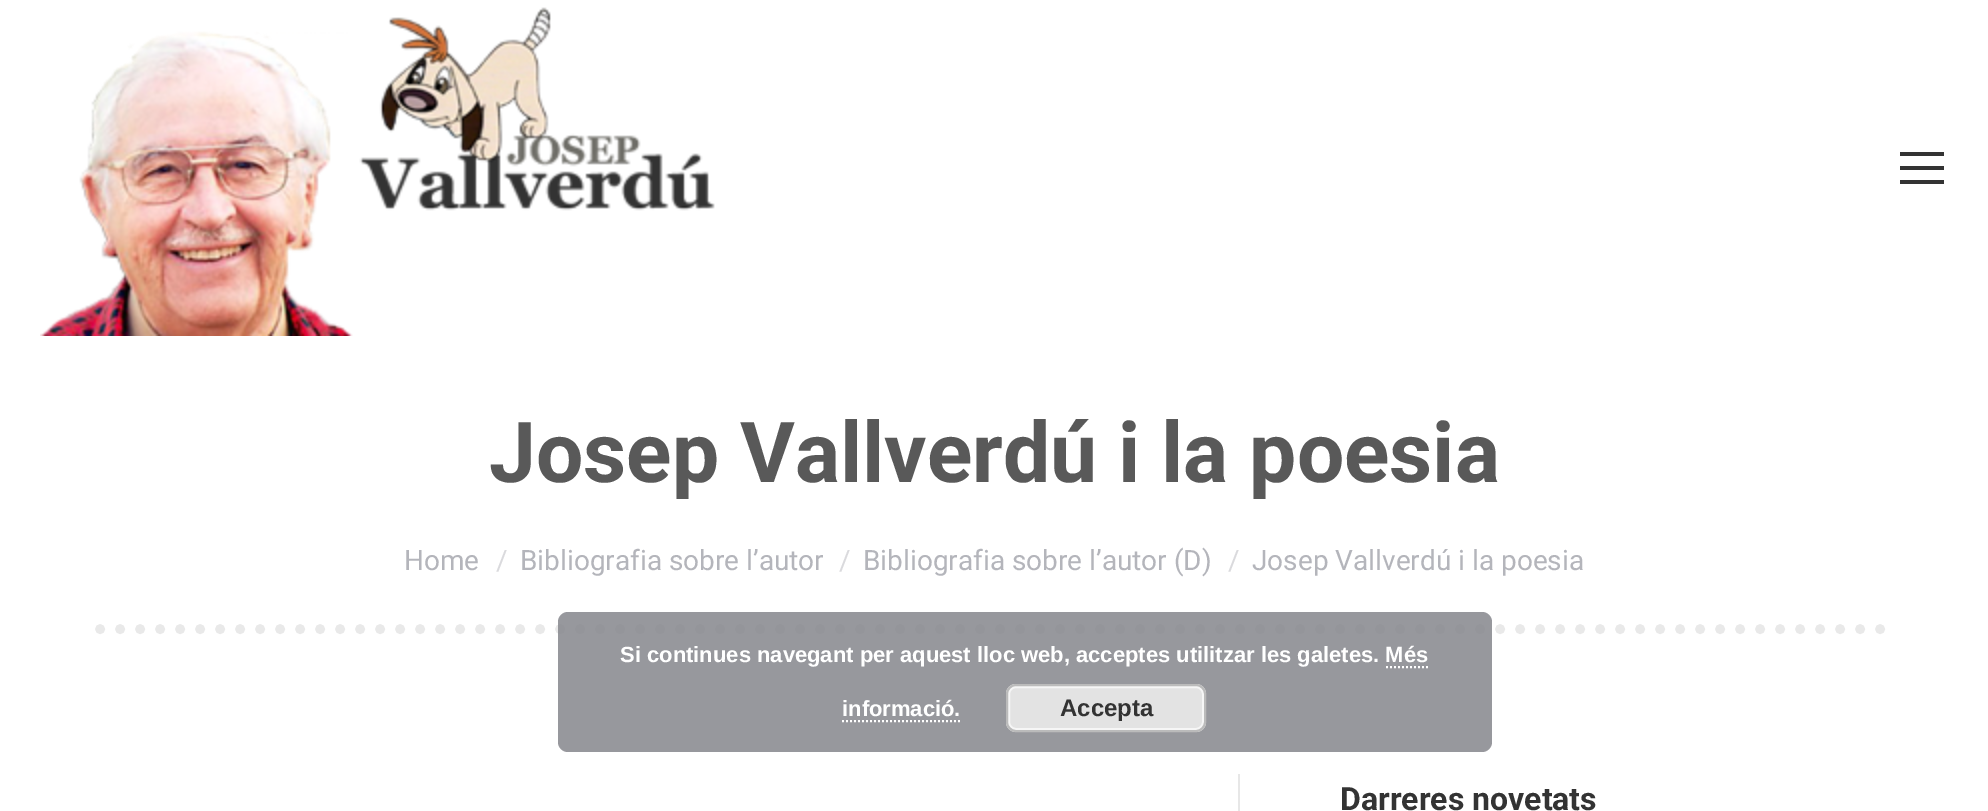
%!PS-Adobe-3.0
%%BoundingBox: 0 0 1988 811
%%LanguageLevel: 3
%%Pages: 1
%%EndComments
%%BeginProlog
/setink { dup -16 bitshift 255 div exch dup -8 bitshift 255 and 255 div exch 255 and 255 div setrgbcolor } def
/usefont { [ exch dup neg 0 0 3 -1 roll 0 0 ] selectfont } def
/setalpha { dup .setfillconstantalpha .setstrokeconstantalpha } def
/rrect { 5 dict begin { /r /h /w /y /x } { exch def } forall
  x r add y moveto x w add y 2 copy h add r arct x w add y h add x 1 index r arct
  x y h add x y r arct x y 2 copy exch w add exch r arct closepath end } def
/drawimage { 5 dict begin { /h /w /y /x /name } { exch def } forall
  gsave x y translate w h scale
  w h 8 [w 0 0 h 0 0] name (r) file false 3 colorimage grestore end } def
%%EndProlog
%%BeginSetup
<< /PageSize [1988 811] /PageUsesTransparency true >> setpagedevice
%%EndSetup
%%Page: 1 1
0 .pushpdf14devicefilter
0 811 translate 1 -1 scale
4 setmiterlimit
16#FFFFFF setink
0 0 1988 811 rectfill
(img1.raw) 40 7 675 329 drawimage
[
    [1900 152 44 4 16#333333]
    [1900 166 44 4 16#333333]
    [1900 180 44 4 16#333333]
] { aload pop setink rectfill } forall
/Roboto-Bold 84 usefont
16#595959 setink
489 482 moveto (Josep Vallverdú i la poesia) show
/Roboto-Regular 28 usefont
16#B4B5BB setink
404 570 moveto (Home) show
16#DADADD setink
496 570 moveto (/) show
16#B4B5BB setink
520 570 moveto (Bibliografia sobre l’autor) show
16#DADADD setink
839 570 moveto (/) show
16#B4B5BB setink
863 570 moveto (Bibliografia sobre l’autor \(D\)) show
16#DADADD setink
1228 570 moveto (/) show
16#B4B5BB setink
1252 570 moveto (Josep Vallverdú i la poesia) show
16#E9E9E9 setink
10 setlinewidth
1 setlinecap
[0 20] 0 setdash
100 629 moveto 1888 629 lineto stroke
16#E7E7E7 setink
1238 774 2 37 rectfill
/Roboto-Bold 32 usefont
16#333333 setink
1340 810 moveto (Darreres novetats) show
0.85 setalpha
16#85868C setink
558 612 934 140 10 rrect fill
/LiberationSans-Bold 22 usefont
1 setalpha
16#FFFFFF setink
620 662 moveto (Si continues navegant per aquest lloc web, acceptes utilitzar les galetes. Més) show
842 716 moveto (informació.) show
2 setlinewidth
0 setlinecap
[2 2] 0 setdash
1386 667 moveto 1428 667 lineto stroke
842 721 moveto 960 721 lineto stroke
16#E3E3E3 setink
1006 684 200 48 10 rrect fill
16#F6F6F6 setink
[] 0 setdash
1009 687 194 42 7 rrect stroke
16#BBBBBB setink
1007 685 198 46 9 rrect stroke
/LiberationSans-Bold 24 usefont
16#333333 setink
1060 716 moveto (Accepta) show
.poppdf14devicefilter showpage
%%EOF
